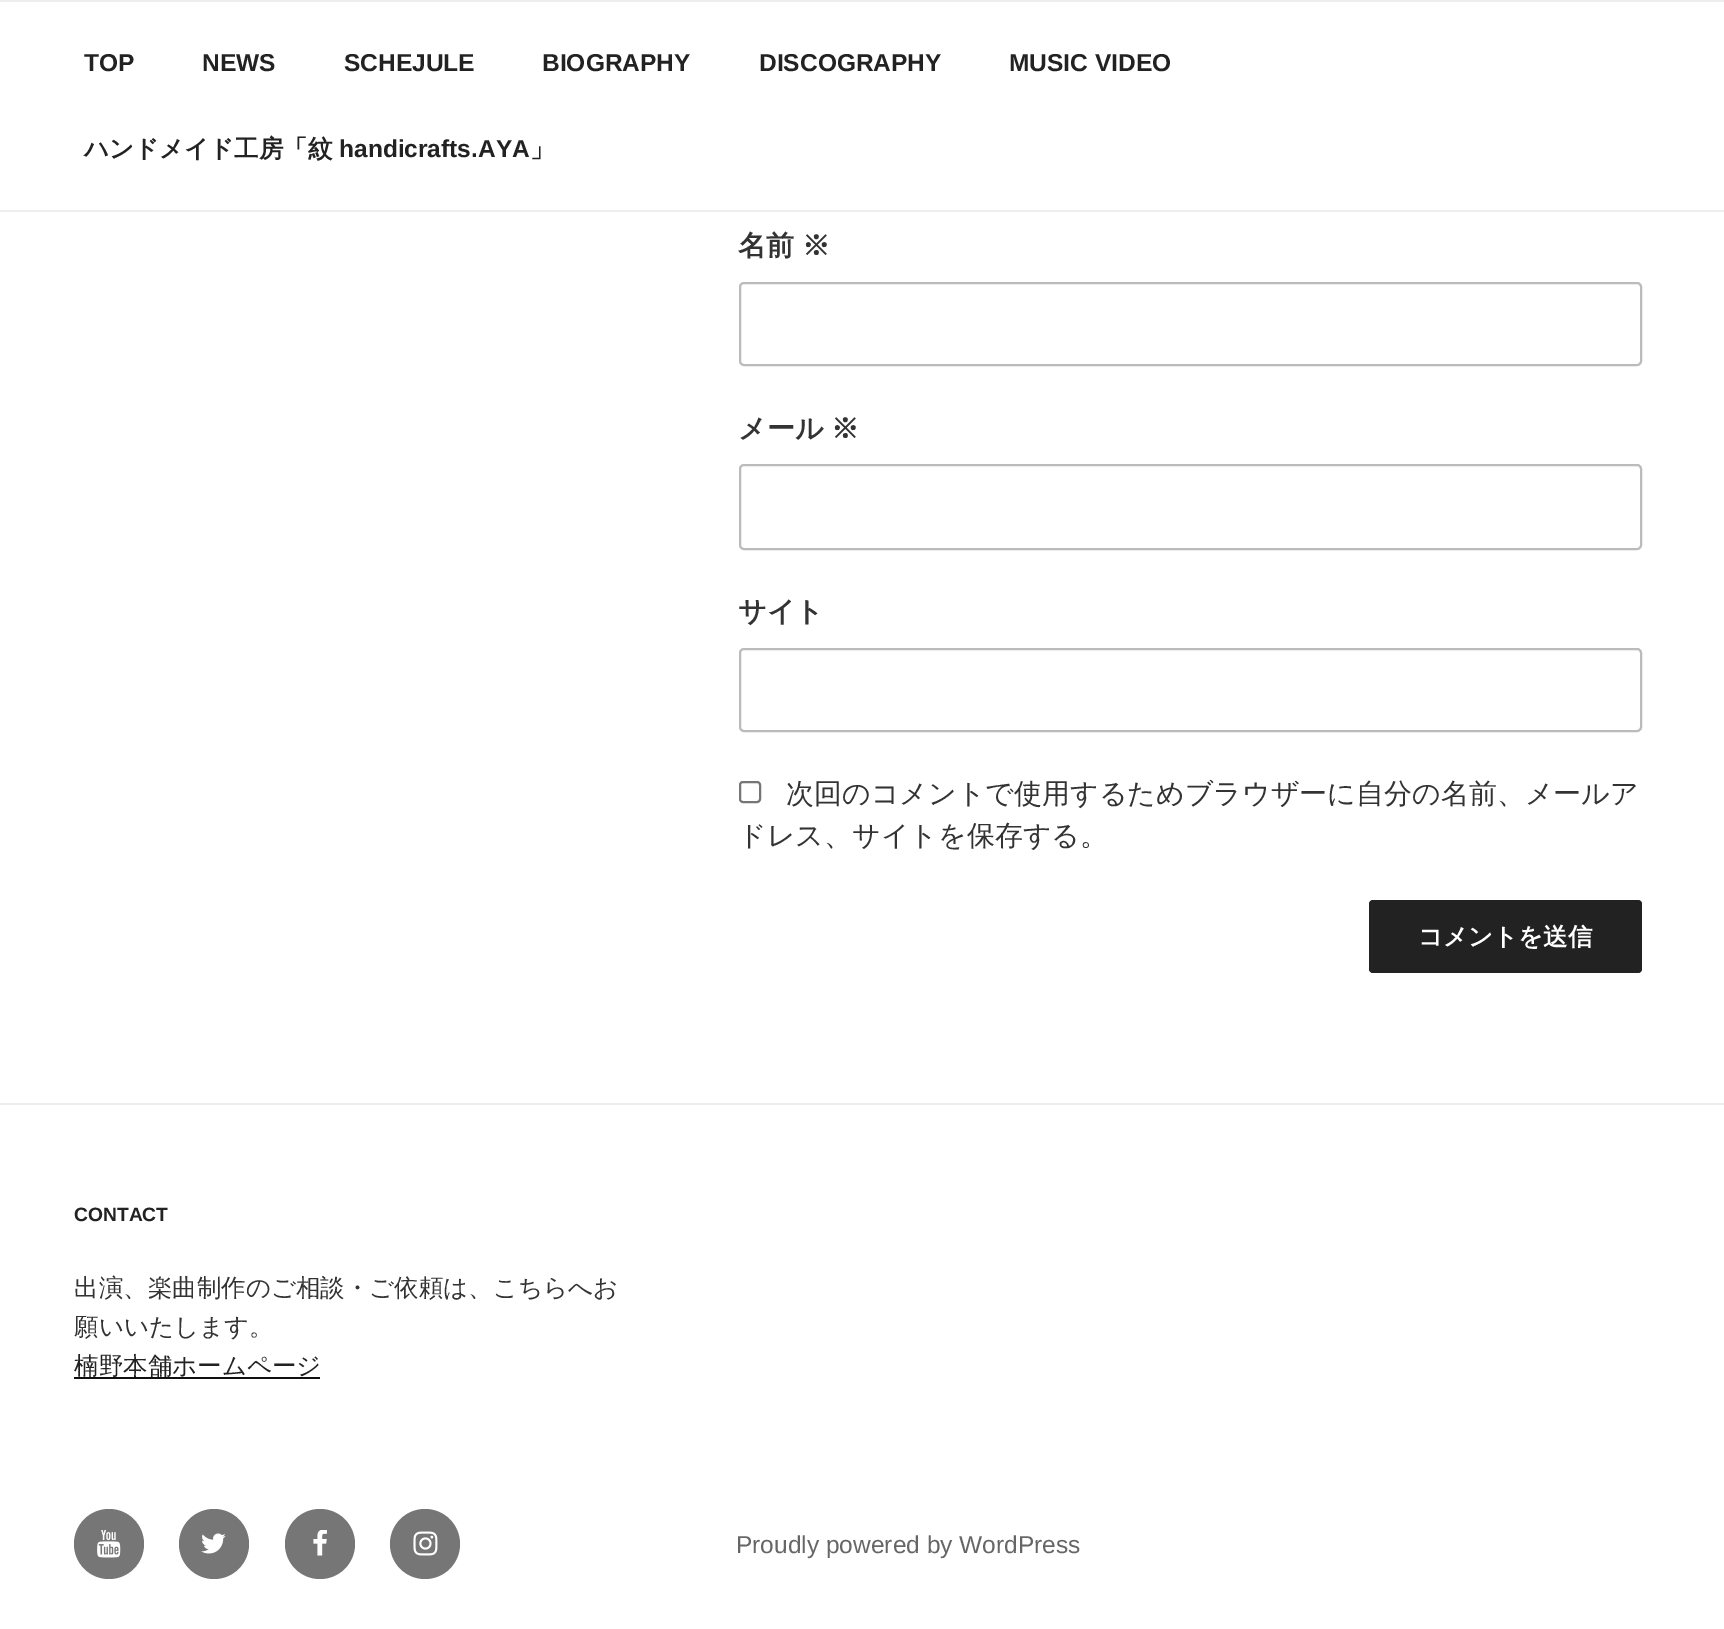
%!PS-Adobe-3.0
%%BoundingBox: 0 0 1724 1629
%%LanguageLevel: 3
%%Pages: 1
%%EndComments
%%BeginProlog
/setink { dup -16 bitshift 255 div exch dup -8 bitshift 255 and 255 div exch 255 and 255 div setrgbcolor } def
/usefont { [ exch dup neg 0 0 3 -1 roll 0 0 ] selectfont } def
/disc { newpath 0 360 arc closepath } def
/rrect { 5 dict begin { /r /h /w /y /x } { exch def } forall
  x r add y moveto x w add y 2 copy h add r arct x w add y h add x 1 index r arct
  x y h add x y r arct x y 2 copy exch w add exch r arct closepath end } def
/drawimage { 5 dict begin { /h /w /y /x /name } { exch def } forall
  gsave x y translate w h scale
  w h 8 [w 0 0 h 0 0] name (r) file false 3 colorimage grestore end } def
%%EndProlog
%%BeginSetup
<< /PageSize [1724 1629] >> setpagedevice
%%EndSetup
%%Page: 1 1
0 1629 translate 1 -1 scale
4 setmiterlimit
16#FFFFFF setink
0 0 1724 1629 rectfill
16#EEEEEE setink
0 0 1724 2 rectfill
0 210 1724 2 rectfill
/LiberationSans-Bold 24.5 usefont
16#222222 setink
[
    [(TOP) 84 71]
    [(NEWS) 202 71]
    [(SCHEJULE) 344 71]
    [(BIOGRAPHY) 542 71]
    [(DISCOGRAPHY) 759 71]
    [(MUSIC VIDEO) 1009 71]
] { aload pop moveto show } forall
/WenQuanYiZenHei-Bold 24.5 usefont
84 157 moveto (ハンドメイド工房「紋) show
/LiberationSans-Bold 24.5 usefont
339 157 moveto (handicrafts.AYA) show
/WenQuanYiZenHei-Bold 24.5 usefont
530 157 moveto (」) show
/WenQuanYiZenHei-Bold 28 usefont
16#333333 setink
738 255 moveto (名前) show
802 255 moveto (※) show
16#BBBBBB setink
2 setlinewidth
740 283 901 82 4 rrect stroke
16#333333 setink
738 438 moveto (メール) show
831 438 moveto (※) show
16#BBBBBB setink
740 465 901 84 4 rrect stroke
16#333333 setink
738 621 moveto (サイト) show
16#BBBBBB setink
740 649 901 82 4 rrect stroke
16#767676 setink
740 782 20 20 3 rrect stroke
/WenQuanYiZenHei-Medium 28 usefont
16#333333 setink
786 803 moveto (次回のコメントで使用するためブラウザーに自分の名前、メールア) show
738 845 moveto (ドレス、サイトを保存する。) show
16#222222 setink
1369 900 273 73 4 rrect fill
/WenQuanYiZenHei-Bold 24.5 usefont
16#FFFFFF setink
1418 945 moveto (コメントを送信) show
16#EEEEEE setink
0 1103 1724 2 rectfill
/LiberationSans-Bold 19.25 usefont
16#222222 setink
74 1221 moveto (CONTACT) show
/WenQuanYiZenHei-Medium 24.5 usefont
16#333333 setink
74 1296 moveto (出演、楽曲制作のご相談・ご依頼は、こちらへお) show
74 1335 moveto (願いいたします。) show
16#0F0F0F setink
74 1377 246 2 rectfill
16#222222 setink
74 1374 moveto (楠野本舗ホームページ) show
16#767676 setink
109 1544 35 disc fill
(img1.raw) 97 1530 24 28 drawimage
214 1544 35 disc fill
(img2.raw) 201 1533 25 21 drawimage
320 1544 35 disc fill
(img3.raw) 313 1530 14 26 drawimage
425 1544 35 disc fill
(img4.raw) 413 1531 25 25 drawimage
/LiberationSans-Regular 24.5 usefont
16#666666 setink
736 1553 moveto (Proudly powered by WordPress) show
showpage
%%EOF
